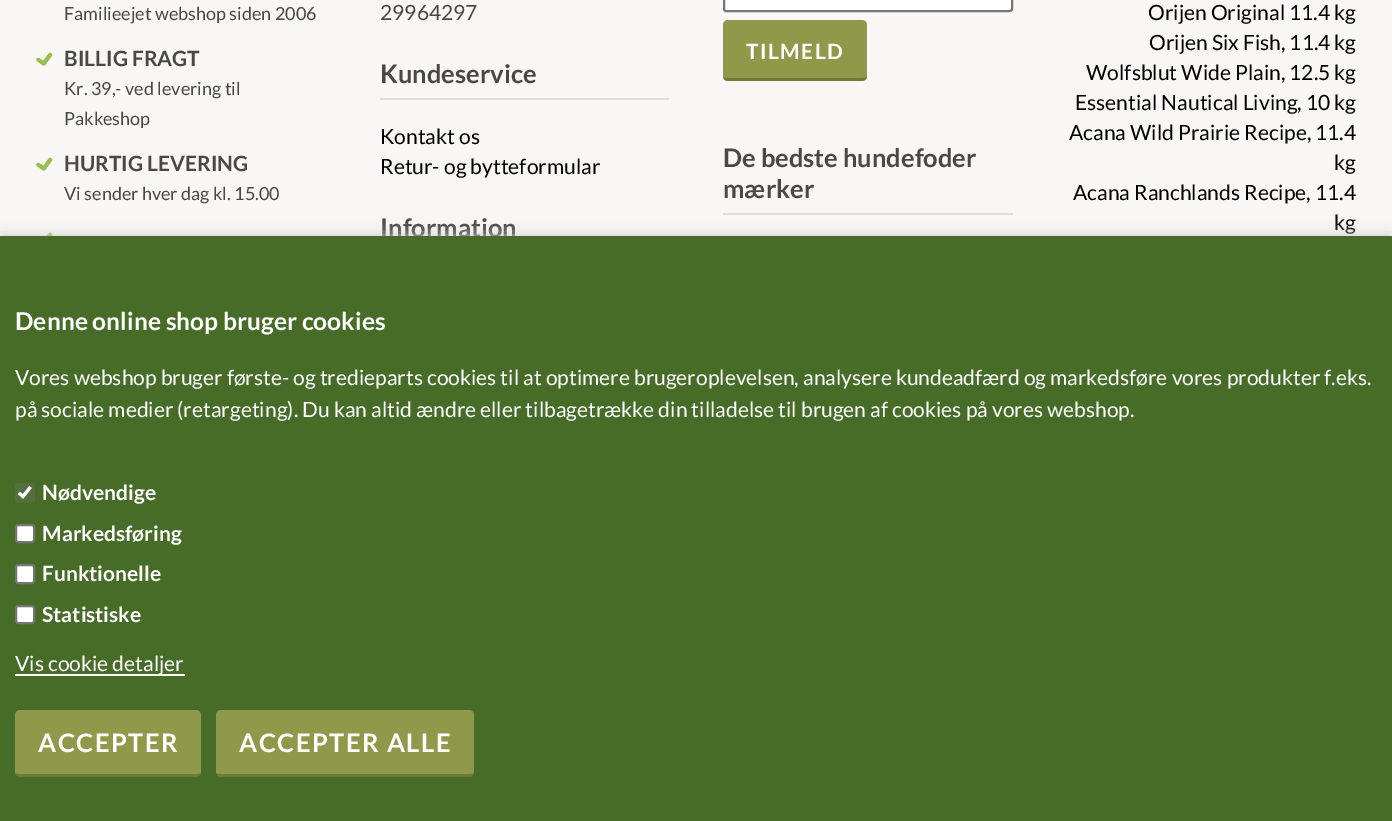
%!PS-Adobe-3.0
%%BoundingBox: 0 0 1392 821
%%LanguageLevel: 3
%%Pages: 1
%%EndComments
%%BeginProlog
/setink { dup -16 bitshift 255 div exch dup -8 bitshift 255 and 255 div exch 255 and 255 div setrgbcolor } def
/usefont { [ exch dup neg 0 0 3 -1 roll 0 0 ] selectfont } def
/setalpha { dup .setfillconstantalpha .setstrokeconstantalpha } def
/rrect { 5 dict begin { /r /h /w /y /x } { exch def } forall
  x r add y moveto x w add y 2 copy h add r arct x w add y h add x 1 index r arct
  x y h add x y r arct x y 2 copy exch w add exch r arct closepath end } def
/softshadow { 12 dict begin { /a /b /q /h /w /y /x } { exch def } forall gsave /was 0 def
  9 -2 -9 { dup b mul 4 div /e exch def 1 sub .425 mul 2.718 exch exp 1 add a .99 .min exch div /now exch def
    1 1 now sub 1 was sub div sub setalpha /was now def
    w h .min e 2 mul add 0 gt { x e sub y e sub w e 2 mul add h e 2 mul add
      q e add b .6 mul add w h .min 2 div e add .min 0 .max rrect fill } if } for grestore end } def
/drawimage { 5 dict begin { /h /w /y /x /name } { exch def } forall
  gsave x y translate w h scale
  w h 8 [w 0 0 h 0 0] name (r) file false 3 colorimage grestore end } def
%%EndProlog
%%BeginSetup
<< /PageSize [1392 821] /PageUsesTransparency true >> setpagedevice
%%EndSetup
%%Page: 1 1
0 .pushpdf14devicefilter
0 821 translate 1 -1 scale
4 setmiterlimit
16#F8F7F5 setink
0 0 1392 821 rectfill
/Lato-Regular 18 usefont
16#484848 setink
64 20 moveto (Familieejet webshop siden 2006) show
(img1.raw) 36 52 17 14 drawimage
/Lato-Bold 21 usefont
64 66 moveto (BILLIG FRAGT) show
/Lato-Regular 18 usefont
64 95 moveto (Kr. 39,- ved levering til) show
64 125 moveto (Pakkeshop) show
(img1.raw) 36 157 17 14 drawimage
/Lato-Bold 21 usefont
64 171 moveto (HURTIG LEVERING) show
/Lato-Regular 18 usefont
64 200 moveto (Vi sender hver dag kl. 15.00) show
(img2.raw) 46 232 7 4 drawimage
/Lato-Regular 21 usefont
380 20 moveto (29964297) show
16#DFDEDD setink
380 98 289 2 rectfill
/Lato-Bold 25.5 usefont
16#484848 setink
380 83 moveto (Kundeservice) show
/Lato-Regular 21 usefont
16#000000 setink
380 144 moveto (Kontakt os) show
380 174 moveto (Retur- og bytteformular) show
/Lato-Bold 25.5 usefont
16#484848 setink
380 237 moveto (Information) show
16#FFFFFF setink
724 -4 288 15 2 rrect gsave fill grestore
16#767676 setink
2 setlinewidth
stroke
16#8E9949 setink
723 20 144 61 5 rrect fill
0.2 setalpha
16#000000 setink
723 77 moveto 723 79 725 81 728 81 curveto 862 81 lineto 865 81 867 79 867 77 curveto 866 78 864 78 862 78 curveto 728 78 lineto 726 78 724 78 723 77 curveto closepath fill
/Lato-Bold 21 usefont
1 setalpha
16#FFFFFF setink
746 59 moveto 1.5 0 (TILMELD) ashow
16#DFDEDD setink
723 213 290 2 rectfill
/Lato-Bold 25.5 usefont
16#484848 setink
723 167 moveto (De bedste hundefoder) show
723 198 moveto (mærker) show
/Lato-Regular 21 usefont
16#000000 setink
[
    [(Orijen Original 11.4 kg) 1148 20]
    [(Orijen Six Fish, 11.4 kg) 1149 50]
    [(Wolfsblut Wide Plain, 12.5 kg) 1086 80]
    [(Essential Nautical Living, 10 kg) 1075 110]
    [(Acana Wild Prairie Recipe, 11.4) 1069 140]
    [(kg) 1334 170]
    [(Acana Ranchlands Recipe, 11.4) 1073 200]
    [(kg) 1334 230]
] { aload pop moveto show } forall
16#CCCCCC setink
0 236 1392 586 0 7.5 1 softshadow
16#466C28 setink
0 236 1392 585 rectfill
/Lato-Bold 24.6 usefont
16#FFFFFF setink
15 330 moveto (Denne online shop bruger cookies) show
/Lato-Regular 21 usefont
15 385 moveto (Vores webshop bruger første- og tredieparts cookies til at optimere brugeroplevelsen, analysere kundeadfærd og markedsføre vores produkter f.eks.) show
15 417 moveto (på sociale medier \(retargeting\). Du kan altid ændre eller tilbagetrække din tilladelse til brugen af cookies på vores webshop.) show
16#546F3F setink
15 483 20 20 3 rrect fill
16#FFFFFF setink
3.1 setlinewidth
19 493 moveto 23 496.5 lineto 30.5 487 lineto stroke
/Lato-Bold 21 usefont
42 500 moveto (Nødvendige) show
16 525 18 17 2 rrect gsave fill grestore
16#767676 setink
2 setlinewidth
stroke
16#FFFFFF setink
42 541 moveto (Markedsføring) show
16 565 18 18 2 rrect gsave fill grestore
16#767676 setink
stroke
16#FFFFFF setink
42 581 moveto (Funktionelle) show
16 606 18 17 2 rrect gsave fill grestore
16#767676 setink
stroke
16#FFFFFF setink
42 622 moveto (Statistiske) show
15 674 170 2 rectfill
/Lato-Regular 21 usefont
15 671 moveto (Vis cookie detaljer) show
16#8E9949 setink
15 710 186 67 5 rrect fill
0.2 setalpha
16#000000 setink
15 773 moveto 15 775 17 777 20 777 curveto 196 777 lineto 199 777 201 775 201 773 curveto 200 774 198 774 196 774 curveto 20 774 lineto 18 774 16 774 15 773 curveto closepath fill
/Lato-Bold 25.5 usefont
1 setalpha
16#FFFFFF setink
38 752 moveto 1.5 0 (ACCEPTER) ashow
16#8E9949 setink
216 710 258 67 5 rrect fill
0.2 setalpha
16#000000 setink
216 773 moveto 216 775 219 777 221 777 curveto 469 777 lineto 471 777 474 775 474 773 curveto 473 774 471 774 470 774 curveto 220 774 lineto 219 774 217 774 216 773 curveto closepath fill
1 setalpha
16#FFFFFF setink
239 752 moveto 1.5 0 (ACCEPTER ALLE) ashow
.poppdf14devicefilter showpage
%%EOF
